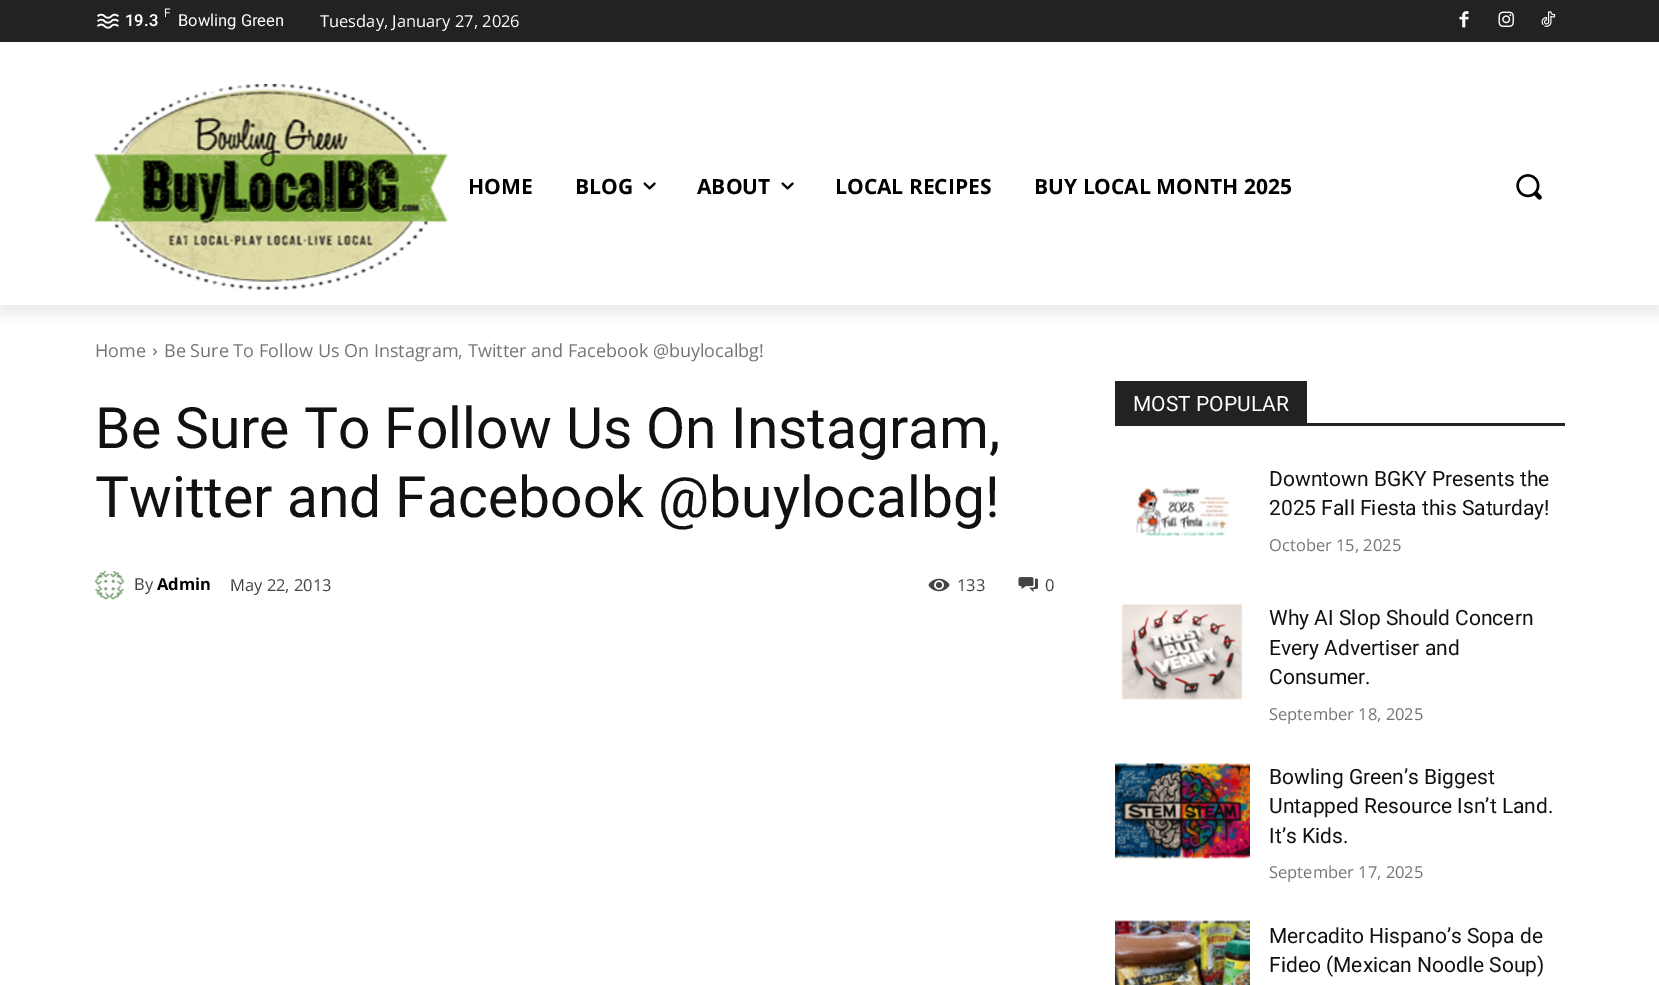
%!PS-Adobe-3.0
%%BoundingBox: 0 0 1659 985
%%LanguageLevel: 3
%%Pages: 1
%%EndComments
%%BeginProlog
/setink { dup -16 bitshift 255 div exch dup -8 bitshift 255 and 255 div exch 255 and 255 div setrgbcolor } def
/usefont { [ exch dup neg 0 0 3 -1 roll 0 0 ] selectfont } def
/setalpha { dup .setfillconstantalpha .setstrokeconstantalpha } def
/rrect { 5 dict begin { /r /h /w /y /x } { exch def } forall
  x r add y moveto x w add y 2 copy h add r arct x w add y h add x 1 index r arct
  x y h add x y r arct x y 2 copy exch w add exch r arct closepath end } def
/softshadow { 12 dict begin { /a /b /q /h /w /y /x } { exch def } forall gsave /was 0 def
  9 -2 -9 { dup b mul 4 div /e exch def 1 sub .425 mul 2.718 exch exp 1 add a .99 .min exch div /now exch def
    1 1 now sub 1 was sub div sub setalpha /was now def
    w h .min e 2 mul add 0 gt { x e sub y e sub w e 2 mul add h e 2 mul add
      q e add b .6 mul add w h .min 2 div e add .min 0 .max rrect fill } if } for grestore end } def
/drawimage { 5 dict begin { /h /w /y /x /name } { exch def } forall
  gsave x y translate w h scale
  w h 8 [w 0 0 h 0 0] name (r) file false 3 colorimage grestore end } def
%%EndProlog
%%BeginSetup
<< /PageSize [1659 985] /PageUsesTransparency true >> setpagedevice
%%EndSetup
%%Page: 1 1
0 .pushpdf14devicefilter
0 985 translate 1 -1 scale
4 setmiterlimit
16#FFFFFF setink
0 0 1659 985 rectfill
16#222222 setink
0 0 1659 42 rectfill
(img1.raw) 96 13 23 16 drawimage
(img2.raw) 1459 11 10 17 drawimage
(img3.raw) 1498 11 16 16 drawimage
(img4.raw) 1541 11 15 16 drawimage
(img5.raw) 94 84 354 206 drawimage
gsave
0 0 moveto 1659 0 lineto 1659 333 lineto 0 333 lineto closepath 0 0 moveto 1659 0 lineto 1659 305 lineto 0 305 lineto closepath eoclip newpath
16#000000 setink
0 9 1659 305 0 6 0.08 softshadow
grestore
/Roboto-Regular 12 usefont
16#FFFFFF setink
164 17 moveto (F) show
/Roboto-SemiBold 16.5 usefont
125 26 moveto (19.3) show
/Roboto-Regular 16.5 usefont
178 26 moveto (Bowling Green) show
/OpenSans-Regular 16.5 usefont
320 27 moveto (Tuesday, January 27, 2026) show
/OpenSans-Bold 21 usefont
16#000000 setink
468 194 moveto (HOME) show
575 194 moveto (BLOG) show
(img6.raw) 643 182 13 8 drawimage
697 194 moveto (ABOUT) show
(img6.raw) 781 182 13 8 drawimage
835 194 moveto (LOCAL RECIPES) show
1034 194 moveto (BUY LOCAL MONTH 2025) show
(img7.raw) 1516 174 26 26 drawimage
/OpenSans-Regular 18 usefont
16#747474 setink
95 357 moveto (Home) show
(img8.raw) 153 348 4 8 drawimage
164 357 moveto (Be Sure To Follow Us On Instagram, Twitter and Facebook @buylocalbg!) show
/Roboto-Regular 57 usefont
16#111111 setink
95 448 moveto (Be Sure To Follow Us On Instagram,) show
95 517 moveto (Twitter and Facebook @buylocalbg!) show
(img9.raw) 94 570 31 30 drawimage
/OpenSans-Regular 16.5 usefont
16#444444 setink
134 590 moveto (By) show
/OpenSans-Bold 16.5 usefont
16#000000 setink
157 590 moveto (Admin) show
/OpenSans-Regular 16.5 usefont
16#444444 setink
230 591 moveto (May 22, 2013) show
(img10.raw) 928 578 22 14 drawimage
957 591 moveto (133) show
(img11.raw) 1018 577 20 15 drawimage
1045 591 moveto (0) show
16#222222 setink
1115 423 450 3 rectfill
1115 381 192 42 rectfill
/Roboto-Regular 21 usefont
16#FFFFFF setink
1133 411 moveto (MOST POPULAR) show
(img12.raw) 1136 487 94 50 drawimage
16#111111 setink
1269 486 moveto (Downtown BGKY Presents the) show
1269 515 moveto (2025 Fall Fiesta this Saturday!) show
/OpenSans-Regular 16.5 usefont
16#747474 setink
1269 551 moveto (October 15, 2025) show
(img13.raw) 1121 604 122 96 drawimage
/Roboto-Regular 21 usefont
16#111111 setink
[
    [(Why AI Slop Should Concern) 1269 625]
    [(Every Advertiser and) 1269 655]
    [(Consumer.) 1269 684]
] { aload pop moveto show } forall
/OpenSans-Regular 16.5 usefont
16#747474 setink
1269 720 moveto (September 18, 2025) show
(img14.raw) 1115 763 135 96 drawimage
/Roboto-Regular 21 usefont
16#111111 setink
[
    [(Bowling Green’s Biggest) 1269 784]
    [(Untapped Resource Isn’t Land.) 1269 813]
    [(It’s Kids.) 1269 843]
] { aload pop moveto show } forall
/OpenSans-Regular 16.5 usefont
16#747474 setink
1269 878 moveto (September 17, 2025) show
(img15.raw) 1115 920 135 65 drawimage
/Roboto-Regular 21 usefont
16#111111 setink
1269 943 moveto (Mercadito Hispano’s Sopa de) show
1269 972 moveto (Fideo \(Mexican Noodle Soup\)) show
.poppdf14devicefilter showpage
%%EOF
